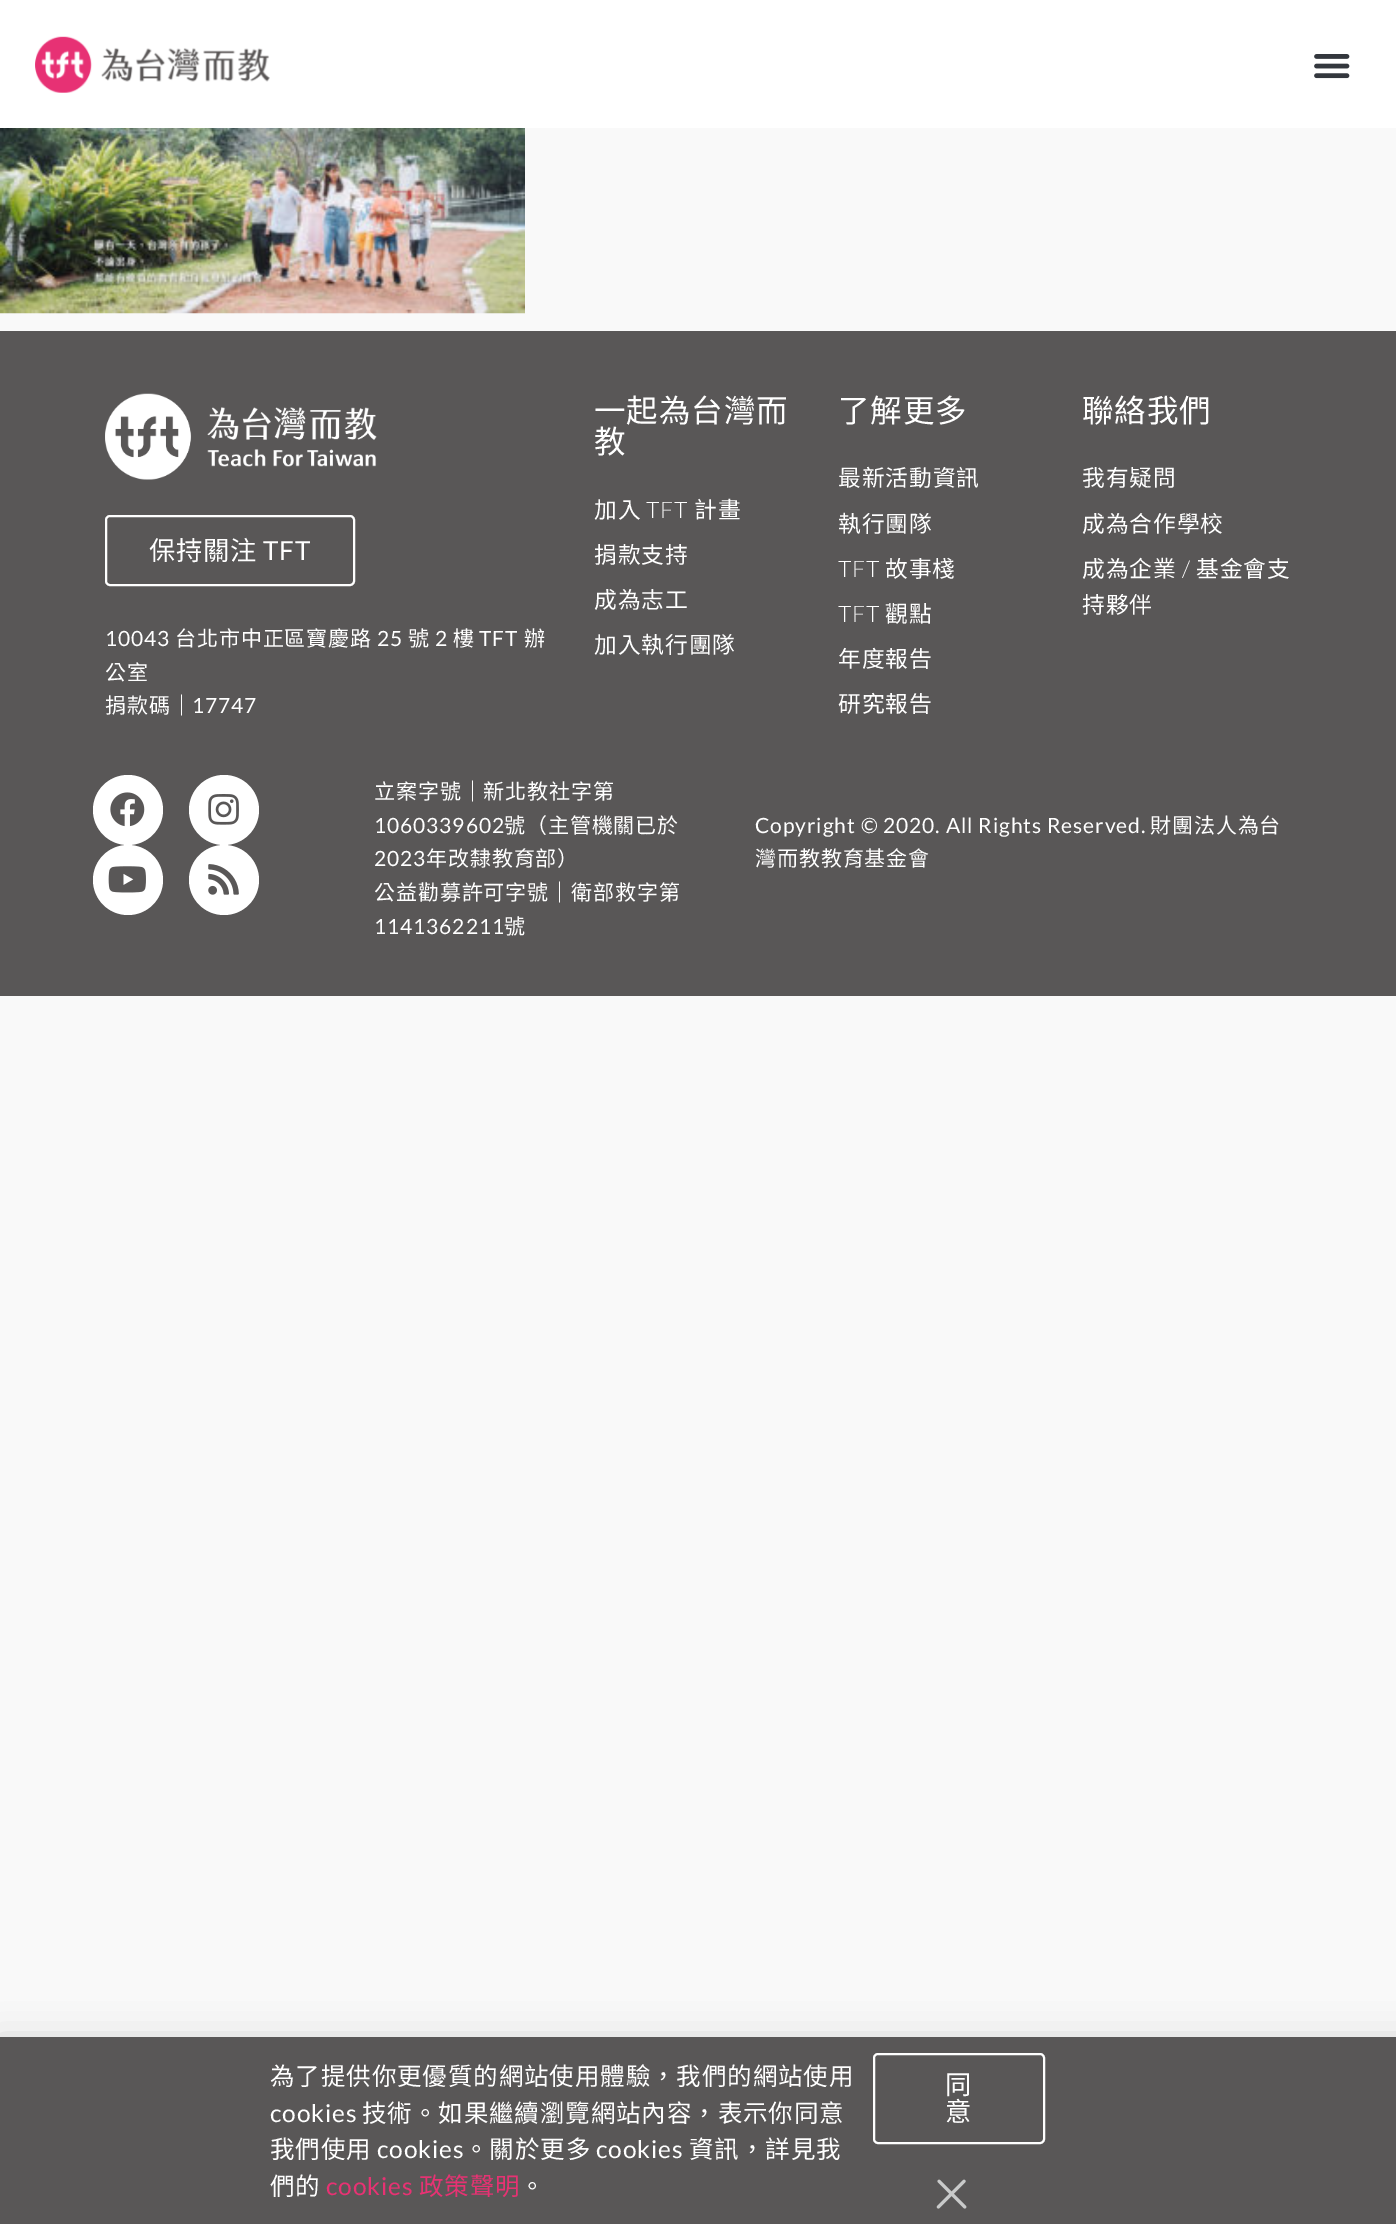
%!PS-Adobe-3.0
%%BoundingBox: 0 0 1396 2224
%%LanguageLevel: 3
%%Pages: 1
%%EndComments
%%BeginProlog
/setink { dup -16 bitshift 255 div exch dup -8 bitshift 255 and 255 div exch 255 and 255 div setrgbcolor } def
/usefont { [ exch dup neg 0 0 3 -1 roll 0 0 ] selectfont } def
/setalpha { dup .setfillconstantalpha .setstrokeconstantalpha } def
/disc { newpath 0 360 arc closepath } def
/rrect { 5 dict begin { /r /h /w /y /x } { exch def } forall
  x r add y moveto x w add y 2 copy h add r arct x w add y h add x 1 index r arct
  x y h add x y r arct x y 2 copy exch w add exch r arct closepath end } def
/softshadow { 12 dict begin { /a /b /q /h /w /y /x } { exch def } forall gsave /was 0 def
  9 -2 -9 { dup b mul 4 div /e exch def 1 sub .425 mul 2.718 exch exp 1 add a .99 .min exch div /now exch def
    1 1 now sub 1 was sub div sub setalpha /was now def
    w h .min e 2 mul add 0 gt { x e sub y e sub w e 2 mul add h e 2 mul add
      q e add b .6 mul add w h .min 2 div e add .min 0 .max rrect fill } if } for grestore end } def
/drawimage { 5 dict begin { /h /w /y /x /name } { exch def } forall
  gsave x y translate w h scale
  w h 8 [w 0 0 h 0 0] name (r) file false 3 colorimage grestore end } def
%%EndProlog
%%BeginSetup
<< /PageSize [1396 2224] /PageUsesTransparency true >> setpagedevice
%%EndSetup
%%Page: 1 1
0 .pushpdf14devicefilter
0 2224 translate 1 -1 scale
4 setmiterlimit
16#F9F9F9 setink
0 0 1396 2224 rectfill
16#FFFFFF setink
0 0 1396 128 rectfill
(img1.raw) 35 36 235 57 drawimage
(img2.raw) 1314 54 36 25 drawimage
(img3.raw) 0 128 525 186 drawimage
16#595757 setink
0 331 1396 665 rectfill
(img4.raw) 105 393 272 87 drawimage
16#FFFFFF setink
2 setlinewidth
106 516 248 69 4 rrect stroke
/NotoSansCJKTC-Regular 26.25 usefont
149 560 moveto 0.9 0 (保持關注) ashow
/Lato-Regular 26.25 usefont
263 560 moveto 0.9 0 (TFT) ashow
/Lato-Regular 21 usefont
105 646 moveto 0.9 0 (10043) ashow
/NotoSansCJKTC-Regular 21 usefont
175 646 moveto 0.9 0 (台北市中正區寶慶路) ashow
/Lato-Regular 21 usefont
377 646 moveto 0.9 0 (25) ashow
/NotoSansCJKTC-Regular 21 usefont
408 646 moveto 0.9 0 (號) ashow
/Lato-Regular 21 usefont
435 646 moveto 0.9 0 (2) ashow
/NotoSansCJKTC-Regular 21 usefont
453 646 moveto 0.9 0 (樓) ashow
/Lato-Regular 21 usefont
479 646 moveto 0.9 0 (TFT) ashow
/NotoSansCJKTC-Regular 21 usefont
524 646 moveto 0.9 0 (辦) ashow
105 680 moveto 0.9 0 (公室) ashow
105 713 moveto 0.9 0 (捐款碼｜) ashow
/Lato-Regular 21 usefont
192 713 moveto 0.9 0 (17747) ashow
/NotoSansCJKTC-Regular 31.5 usefont
594 422 moveto 0.9 0 (一起為台灣而) ashow
594 453 moveto 0.9 0 (教) ashow
/NotoSansCJKTC-Regular 22.75 usefont
594 518 moveto 0.9 0 (加入) ashow
/Lato-Light 22.75 usefont
646 518 moveto 0.9 0 (TFT) ashow
/NotoSansCJKTC-Regular 22.75 usefont
694 518 moveto 0.9 0 (計畫) ashow
594 563 moveto 0.9 0 (捐款支持) ashow
594 608 moveto 0.9 0 (成為志工) ashow
594 653 moveto 0.9 0 (加入執行團隊) ashow
/NotoSansCJKTC-Regular 31.5 usefont
838 422 moveto 0.9 0 (了解更多) ashow
/NotoSansCJKTC-Regular 22.75 usefont
838 486 moveto 0.9 0 (最新活動資訊) ashow
838 532 moveto 0.9 0 (執行團隊) ashow
/Lato-Light 22.75 usefont
838 577 moveto 0.9 0 (TFT) ashow
/NotoSansCJKTC-Regular 22.75 usefont
885 577 moveto 0.9 0 (故事棧) ashow
/Lato-Light 22.75 usefont
838 622 moveto 0.9 0 (TFT) ashow
/NotoSansCJKTC-Regular 22.75 usefont
885 622 moveto 0.9 0 (觀點) ashow
838 667 moveto 0.9 0 (年度報告) ashow
838 712 moveto 0.9 0 (研究報告) ashow
/NotoSansCJKTC-Regular 31.5 usefont
1082 422 moveto 0.9 0 (聯絡我們) ashow
/NotoSansCJKTC-Regular 22.75 usefont
1082 486 moveto 0.9 0 (我有疑問) ashow
1082 532 moveto 0.9 0 (成為合作學校) ashow
1082 577 moveto 0.9 0 (成為企業) ashow
/Lato-Light 22.75 usefont
1182 577 moveto 0.9 0 (/) ashow
/NotoSansCJKTC-Regular 22.75 usefont
1196 577 moveto 0.9 0 (基金會支) ashow
1082 613 moveto 0.9 0 (持夥伴) ashow
128 810 35 disc fill
(img5.raw) 110 792 35 35 drawimage
224 810 35 disc fill
(img6.raw) 208 794 31 31 drawimage
128 880 35 disc fill
(img7.raw) 108 866 38 27 drawimage
224 880 35 disc fill
(img8.raw) 208 864 31 31 drawimage
/NotoSansCJKTC-Regular 21 usefont
374 799 moveto 0.9 0 (立案字號｜新北教社字第) ashow
/Lato-Regular 21 usefont
374 833 moveto 0.9 0 (1060339602) ashow
/NotoSansCJKTC-Regular 21 usefont
504 833 moveto 0.9 0 (號（主管機關已於) ashow
/Lato-Regular 21 usefont
374 866 moveto 0.9 0 (2023) ashow
/NotoSansCJKTC-Regular 21 usefont
426 866 moveto 0.9 0 (年改隸教育部）) ashow
374 900 moveto 0.9 0 (公益勸募許可字號｜衛部救字第) ashow
/Lato-Regular 21 usefont
374 934 moveto 0.9 0 (1141362211) ashow
/NotoSansCJKTC-Regular 21 usefont
504 934 moveto 0.9 0 (號) ashow
/Lato-Regular 21 usefont
755 833 moveto 0.9 0 (Copyright © 2020. All Rights Reserved.) ashow
/NotoSansCJKTC-Regular 21 usefont
1150 833 moveto 0.9 0 (財團法人為台) ashow
755 866 moveto 0.9 0 (灣而教教育基金會) ashow
16#000000 setink
-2 2046 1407 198 0 20 0.2 softshadow
16#595757 setink
0 2037 1396 187 rectfill
/NotoSansCJKTC-Regular 24.5 usefont
16#FFFFFF setink
270 2085 moveto 0.9 0 (為了提供你更優質的網站使用體驗，我們的網站使用) ashow
/Lato-Regular 24.5 usefont
270 2122 moveto 0.9 0 (cookies) ashow
/NotoSansCJKTC-Regular 24.5 usefont
362 2122 moveto 0.9 0 (技術。如果繼續瀏覽網站內容，表示你同意) ashow
270 2158 moveto 0.9 0 (我們使用) ashow
/Lato-Regular 24.5 usefont
377 2158 moveto 0.9 0 (cookies) ashow
/NotoSansCJKTC-Regular 24.5 usefont
464 2158 moveto 0.9 0 (。關於更多) ashow
/Lato-Regular 24.5 usefont
596 2158 moveto 0.9 0 (cookies) ashow
/NotoSansCJKTC-Regular 24.5 usefont
689 2158 moveto 0.9 0 (資訊，詳見我) ashow
270 2195 moveto 0.9 0 (們的) ashow
/Lato-Regular 24.5 usefont
16#E73273 setink
326 2195 moveto 0.9 0 (cookies) ashow
/NotoSansCJKTC-Regular 24.5 usefont
419 2195 moveto 0.9 0 (政策聲明) ashow
16#FFFFFF setink
520 2195 moveto 0.9 0 (。) ashow
874 2054 170 89 4 rrect stroke
/NotoSansCJKTC-Regular 26.25 usefont
945 2094 moveto 0.9 0 (同) ashow
945 2121 moveto 0.9 0 (意) ashow
(img9.raw) 936 2179 31 30 drawimage
.poppdf14devicefilter showpage
%%EOF
